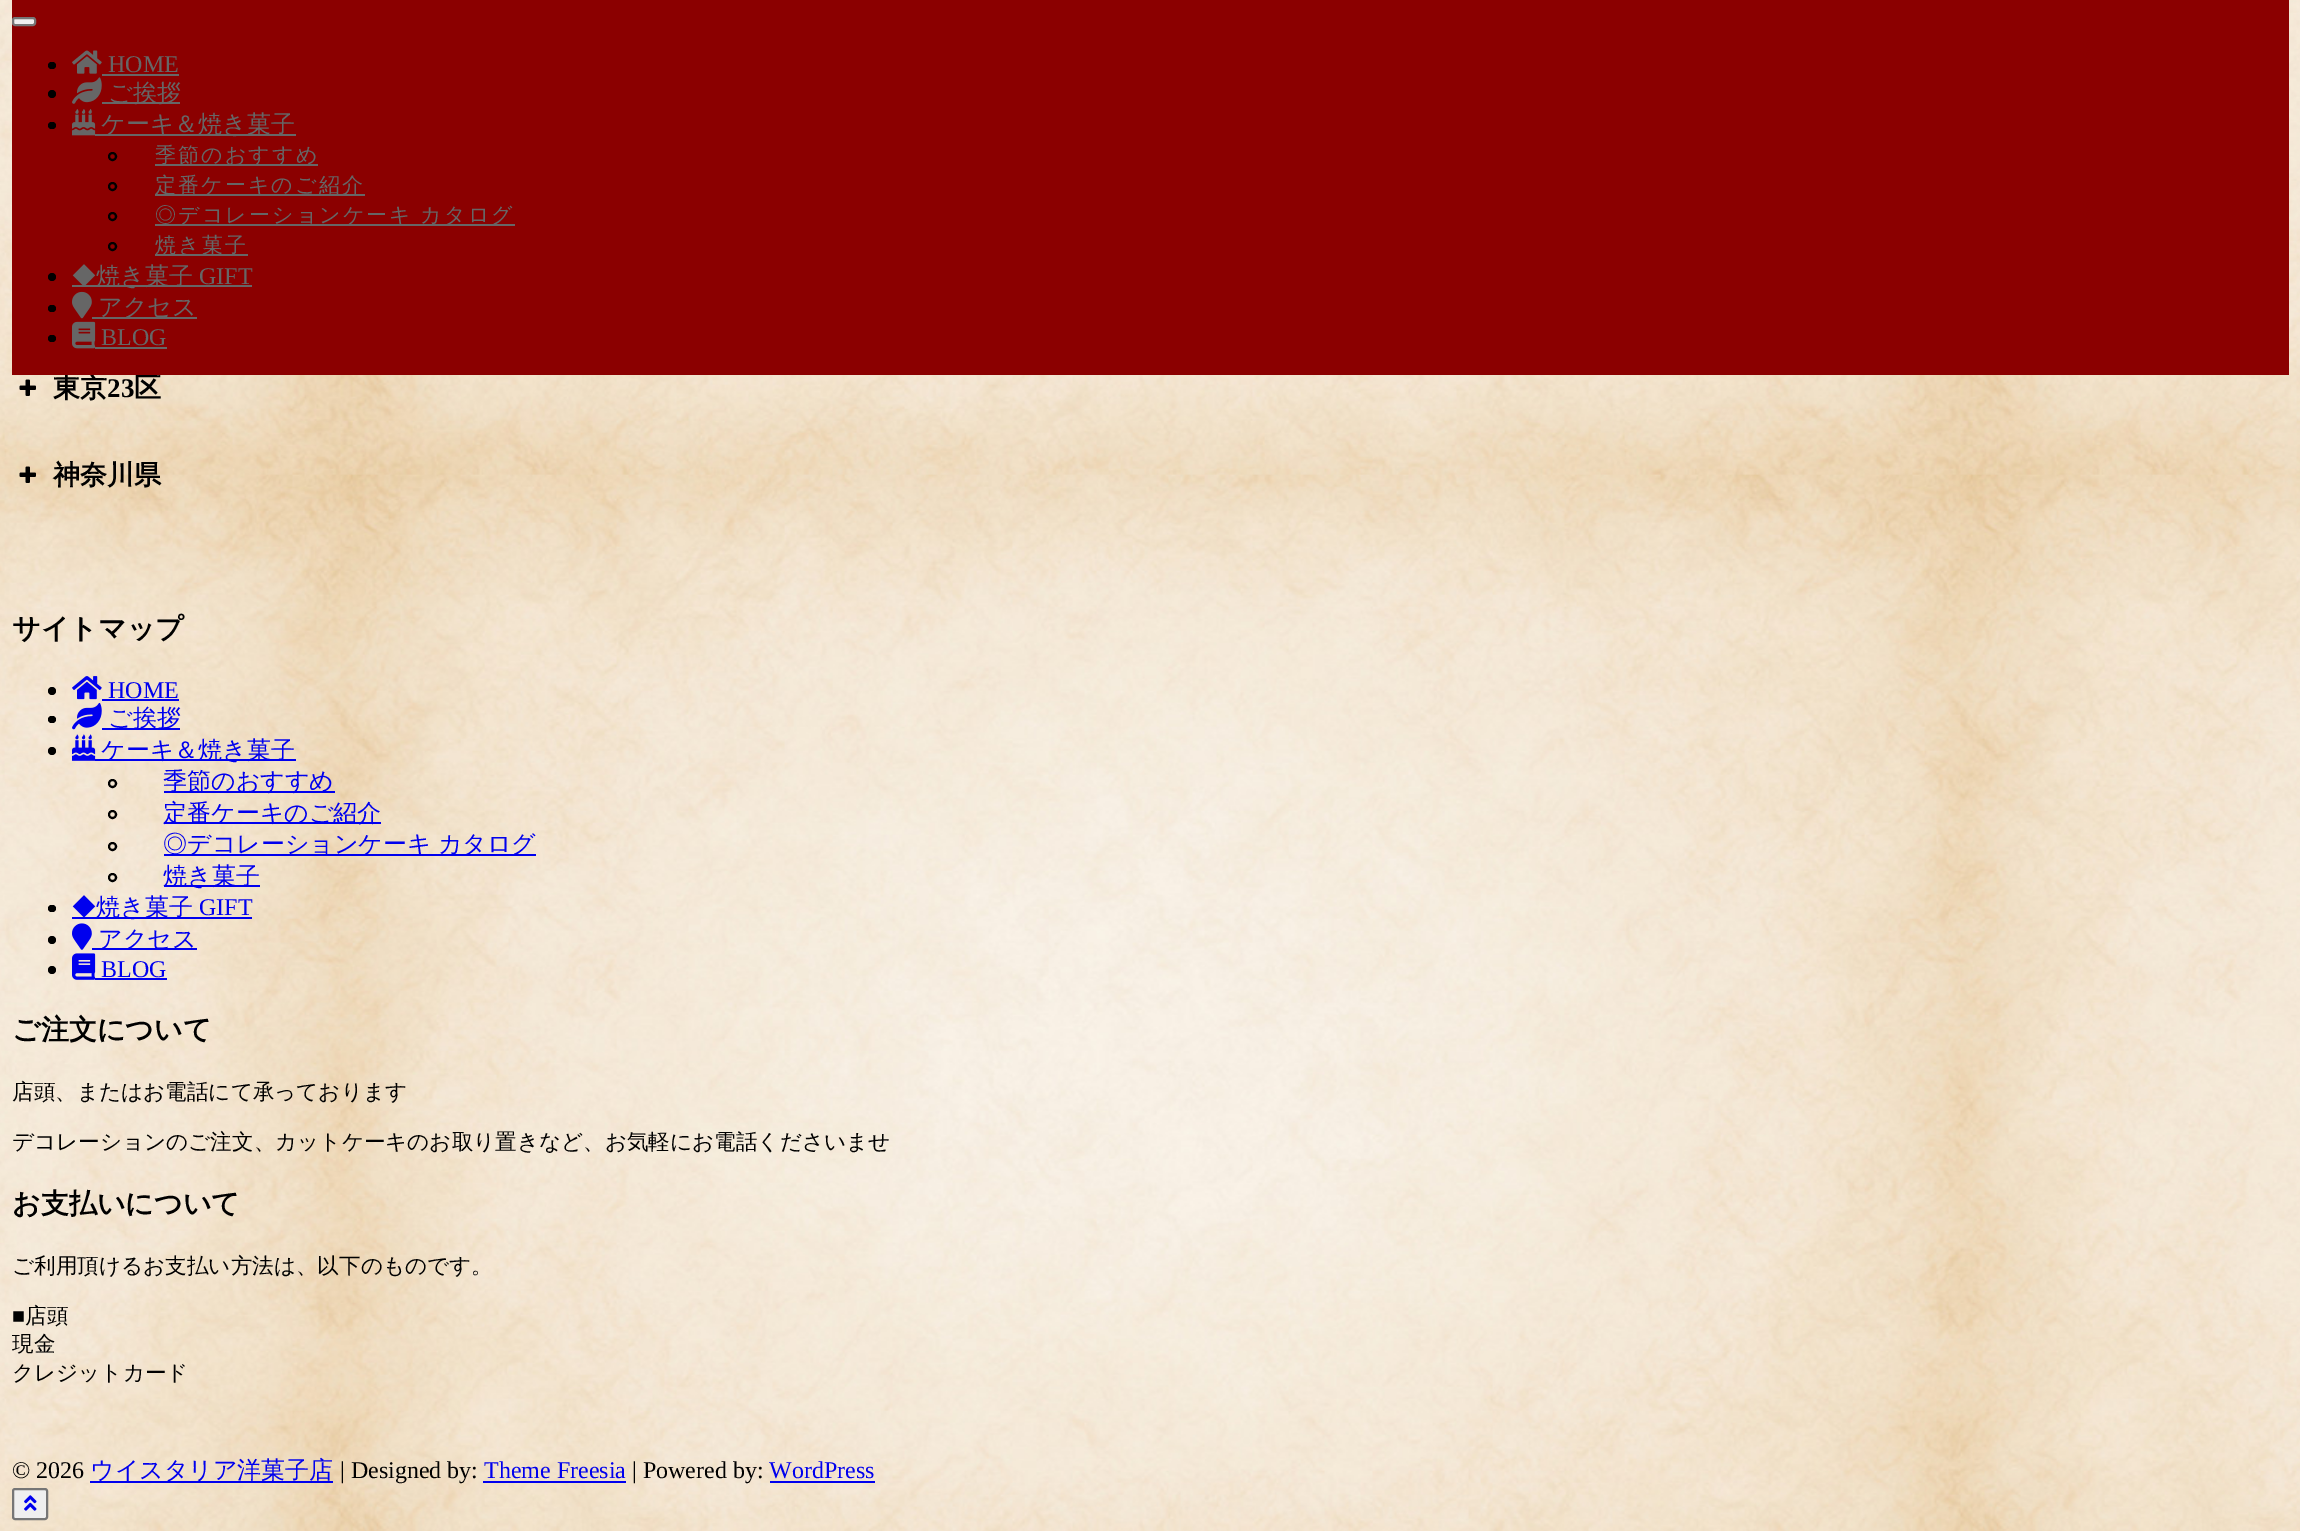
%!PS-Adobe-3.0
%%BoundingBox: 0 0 2300 1531
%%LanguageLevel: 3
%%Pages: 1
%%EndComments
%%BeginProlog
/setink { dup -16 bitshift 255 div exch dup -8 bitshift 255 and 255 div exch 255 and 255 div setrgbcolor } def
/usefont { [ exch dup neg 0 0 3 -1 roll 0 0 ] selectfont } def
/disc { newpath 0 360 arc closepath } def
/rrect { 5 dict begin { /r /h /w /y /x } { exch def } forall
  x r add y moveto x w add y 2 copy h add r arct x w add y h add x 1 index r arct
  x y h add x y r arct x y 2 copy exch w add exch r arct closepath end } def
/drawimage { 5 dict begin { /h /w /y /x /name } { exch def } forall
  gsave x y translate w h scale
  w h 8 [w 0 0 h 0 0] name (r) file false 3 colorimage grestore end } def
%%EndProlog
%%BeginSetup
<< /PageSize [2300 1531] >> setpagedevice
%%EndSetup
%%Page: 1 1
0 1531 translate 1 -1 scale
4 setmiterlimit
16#FFFFFF setink
0 0 2300 1531 rectfill
(img1.raw) 0 0 2300 1531 drawimage
/WenQuanYiZenHei-Bold 27 usefont
16#000000 setink
53 397 moveto (東京) show
16#8B0000 setink
12 0 2277 375 rectfill
16#EFEFEF setink
13 18 22 7 2 rrect gsave fill grestore
16#767676 setink
2 setlinewidth
stroke
16#000000 setink
48 62 8 7 3.5 rrect fill
(img2.raw) 72 50 30 24 drawimage
/LiberationSerif-Regular 24 usefont
16#666666 setink
108 72 moveto (HOME) show
102 74 77 2 rectfill
16#000000 setink
52 94 4 disc fill
(img3.raw) 72 77 30 27 drawimage
16#666666 setink
102 102 78 2 rectfill
/WenQuanYiZenHei-Medium 24 usefont
108 101 moveto (ご挨拶) show
16#000000 setink
48 122 8 7 3.5 rrect fill
(img4.raw) 72 109 24 27 drawimage
16#666666 setink
95 134 201 2 rectfill
101 132 moveto (ケーキ＆焼き菓子) show
16#000000 setink
112.5 156.5 3.5 disc stroke
16#666666 setink
155 164 163 2 rectfill
/WenQuanYiZenHei-Medium 21 usefont
155 162 moveto 2.1 0 (季節のおすすめ) ashow
16#000000 setink
112.5 186.5 3.5 disc stroke
16#666666 setink
155 194 210 2 rectfill
155 192 moveto 2.1 0 (定番ケーキのご紹介) ashow
16#000000 setink
112.5 216.5 3.5 disc stroke
16#666666 setink
155 224 360 2 rectfill
155 222 moveto -1 0 32 2.1 0 (◎デコレーションケーキ カタログ) awidthshow
16#000000 setink
112.5 246.5 3.5 disc stroke
16#666666 setink
155 254 93 2 rectfill
155 252 moveto 2.1 0 (焼き菓子) ashow
16#000000 setink
52 277 4 disc fill
16#666666 setink
72 285 180 2 rectfill
/WenQuanYiZenHei-Medium 24 usefont
72 284 moveto (◆焼き菓子) show
/LiberationSerif-Regular 24 usefont
199 284 moveto (GIFT) show
16#000000 setink
48 305 8 7 3.5 rrect fill
(img5.raw) 72 291 20 28 drawimage
16#666666 setink
92 317 105 2 rectfill
/WenQuanYiZenHei-Medium 24 usefont
98 315 moveto (アクセス) show
16#000000 setink
48 335 8 7 3.5 rrect fill
(img6.raw) 72 321 24 28 drawimage
/LiberationSerif-Regular 24 usefont
16#666666 setink
101 345 moveto (BLOG) show
95 347 72 2 rectfill
(img7.raw) 19 379 17 17 drawimage
/LiberationSerif-Bold 27 usefont
16#000000 setink
107 397 moveto (23) show
/WenQuanYiZenHei-Bold 27 usefont
134 397 moveto (区) show
(img8.raw) 19 466 17 17 drawimage
53 484 moveto (神奈川県) show
/WenQuanYiZenHei-Bold 28 usefont
12 638 moveto (サイトマップ) show
52 691 4 disc fill
(img9.raw) 72 676 30 24 drawimage
/LiberationSerif-Regular 24 usefont
16#0000EE setink
108 698 moveto (HOME) show
102 699 77 2 rectfill
16#000000 setink
48 716 8 7 3.5 rrect fill
(img10.raw) 72 702 30 28 drawimage
16#0000EE setink
102 728 78 2 rectfill
/WenQuanYiZenHei-Medium 24 usefont
108 726 moveto (ご挨拶) show
16#000000 setink
52 751 4 disc fill
(img11.raw) 72 734 24 27 drawimage
16#0000EE setink
95 759 201 2 rectfill
101 758 moveto (ケーキ＆焼き菓子) show
16#000000 setink
112.5 783.5 3.5 disc stroke
16#0000EE setink
164 791 171 2 rectfill
163 789 moveto (季節のおすすめ) show
16#000000 setink
112.5 814.5 3.5 disc stroke
16#0000EE setink
164 822 217 2 rectfill
163 821 moveto (定番ケーキのご紹介) show
16#000000 setink
112.5 846.5 3.5 disc stroke
16#0000EE setink
164 854 372 2 rectfill
163 852 moveto -1 0 32 (◎デコレーションケーキ カタログ) widthshow
16#000000 setink
112.5 877.5 3.5 disc stroke
16#0000EE setink
164 885 96 2 rectfill
163 884 moveto (焼き菓子) show
16#000000 setink
48 905 8 7 3.5 rrect fill
16#0000EE setink
72 917 180 2 rectfill
72 915 moveto (◆焼き菓子) show
/LiberationSerif-Regular 24 usefont
199 915 moveto (GIFT) show
16#000000 setink
52 940 4 disc fill
(img12.raw) 72 923 20 27 drawimage
16#0000EE setink
92 948 105 2 rectfill
/WenQuanYiZenHei-Medium 24 usefont
98 947 moveto (アクセス) show
16#000000 setink
52 970 4 disc fill
(img13.raw) 72 953 24 27 drawimage
/LiberationSerif-Regular 24 usefont
16#0000EE setink
101 977 moveto (BLOG) show
95 978 72 2 rectfill
/WenQuanYiZenHei-Bold 28 usefont
16#000000 setink
12 1039 moveto (ご注文について) show
/WenQuanYiZenHei-Medium 21.6 usefont
12 1099 moveto (店頭、またはお電話にて承っております) show
12 1149 moveto (デコレーションのご注文、カットケーキのお取り置きなど、お気軽にお電話くださいませ) show
/WenQuanYiZenHei-Bold 28 usefont
12 1213 moveto (お支払いについて) show
/WenQuanYiZenHei-Medium 21.6 usefont
12 1273 moveto (ご利用頂けるお支払い方法は、以下のものです。) show
/LiberationSerif-Regular 21.6 usefont
12 1323 moveto (■) show
/WenQuanYiZenHei-Medium 21.6 usefont
[
    [(店頭) 25 1323]
    [(現金) 12 1351]
    [(クレジットカード) 12 1380]
] { aload pop moveto show } forall
/LiberationSerif-Regular 24 usefont
12 1478 moveto (© 2026) show
16#0000EE setink
90 1481 243 2 rectfill
/WenQuanYiZenHei-Medium 24 usefont
90 1478 moveto (ウイスタリア洋菓子店) show
/LiberationSerif-Regular 24 usefont
16#000000 setink
340 1478 moveto (| Designed by:) show
16#0000EE setink
484 1478 moveto (Theme Freesia) show
483 1481 143 2 rectfill
16#000000 setink
632 1478 moveto (| Powered by:) show
16#0000EE setink
769 1478 moveto (WordPress) show
770 1481 105 2 rectfill
16#EFEFEF setink
13 1489 34 30 2 rrect gsave fill grestore
16#767676 setink
stroke
(img14.raw) 24 1495 13 16 drawimage
showpage
%%EOF
